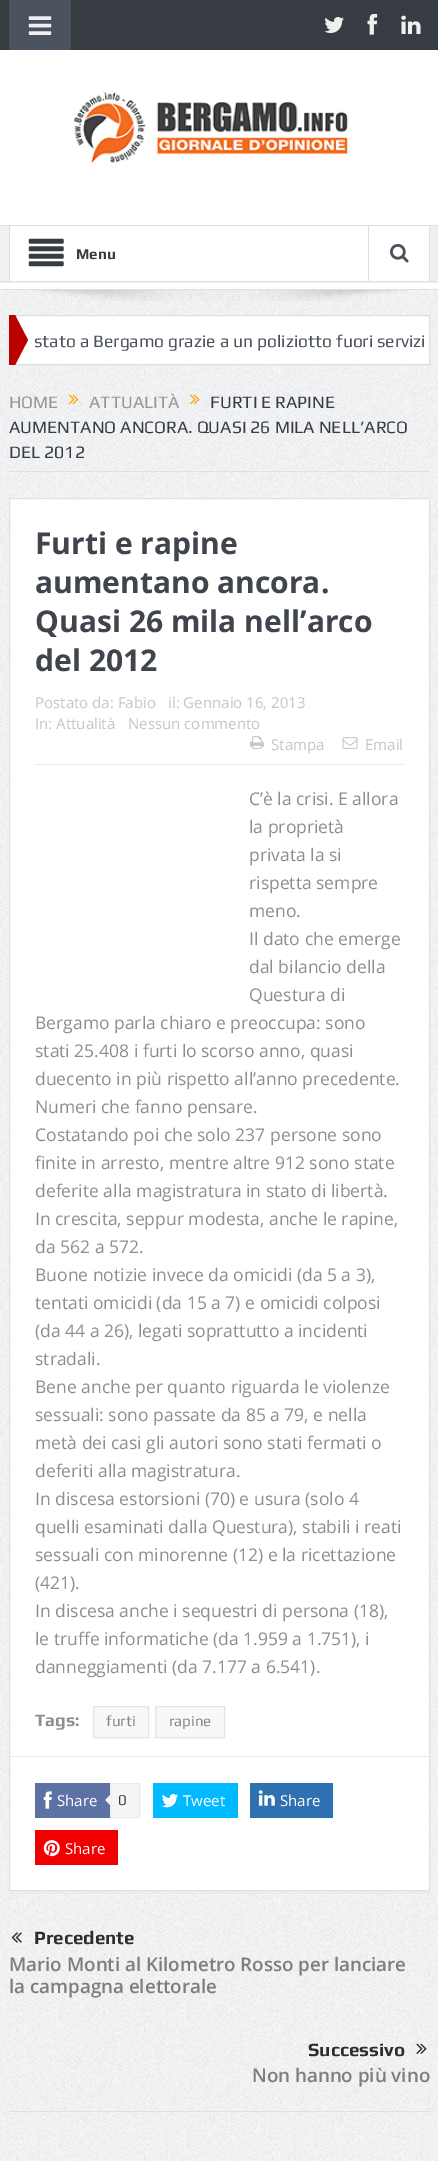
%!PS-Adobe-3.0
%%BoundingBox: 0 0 438 2161
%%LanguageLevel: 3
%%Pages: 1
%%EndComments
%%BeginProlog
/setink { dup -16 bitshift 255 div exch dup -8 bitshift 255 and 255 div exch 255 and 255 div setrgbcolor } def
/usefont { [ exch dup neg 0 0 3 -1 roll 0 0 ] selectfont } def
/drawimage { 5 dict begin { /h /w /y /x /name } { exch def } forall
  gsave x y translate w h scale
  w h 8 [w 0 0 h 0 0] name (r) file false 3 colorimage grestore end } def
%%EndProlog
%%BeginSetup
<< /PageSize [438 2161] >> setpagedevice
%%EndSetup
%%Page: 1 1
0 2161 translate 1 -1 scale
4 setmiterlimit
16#FFFFFF setink
0 0 438 2161 rectfill
(img1.raw) 0 290 438 1871 drawimage
16#373C43 setink
0 0 438 50 rectfill
16#4A525D setink
9 0 62 50 rectfill
(img2.raw) 28 16 24 19 drawimage
(img3.raw) 324 17 20 16 drawimage
(img4.raw) 367 13 11 22 drawimage
(img5.raw) 401 15 20 19 drawimage
(img6.raw) 74 92 274 72 drawimage
[
    [0 225 438 1 16#DFDFDF]
    [0 289 438 1 16#DFDFDF]
    [0 226 438 57 16#F0F0F0]
    [0 281 438 1 16#DFDFDF]
    [10 226 358 55 16#FFFFFF]
    [9 226 1 55 16#DFDFDF]
] { aload pop setink rectfill } forall
(img7.raw) 28 238 36 29 drawimage
/Play-Bold 15 usefont
16#3C3C3C setink
76 259 moveto (Menu) show
[
    [369 226 60 55 16#FFFFFF]
    [429 226 1 55 16#DFDFDF]
    [368 226 1 55 16#DFDFDF]
] { aload pop setink rectfill } forall
(img8.raw) 390 243 19 20 drawimage
(img9.raw) 33 290 374 11 drawimage
16#BB0000 setink
9 315 6 50 rectfill
16#FFFFFF setink
15.5 315.5 moveto 429.5 315.5 lineto 429.5 364.5 lineto 15.5 364.5 lineto closepath gsave fill grestore
16#DFDFDF setink
stroke
16#BB0000 setink
15 365 moveto 15 315 lineto 28 340 lineto closepath fill
/Play-Regular 17.5 usefont
16#4A525D setink
34 347 moveto (stato a Bergamo grazie a un poliziotto fuori servizi) show
16#E0E0E0 setink
9 471 421 1 rectfill
16#959595 setink
9 408 moveto (HOME) show
(img10.raw) 68 394 11 11 drawimage
89 408 moveto (ATTUALITÀ) show
(img11.raw) 190 394 10 11 drawimage
16#373C43 setink
[
    [(FURTI E RAPINE) 210 408]
    [(AUMENTANO ANCORA. QUASI 26 MILA NELL’ARCO) 9 433]
    [(DEL 2012) 9 458]
] { aload pop moveto show } forall
16#FFFFFF setink
9.5 498.5 moveto 429.5 498.5 lineto 429.5 1890.5 lineto 9.5 1890.5 lineto closepath gsave fill grestore
16#E0E0E0 setink
stroke
/OpenSans-Bold 30 usefont
16#40454D setink
[
    [(Furti e rapine) 35 554]
    [(aumentano ancora.) 35 593]
    [(Quasi 26 mila nell’arco) 35 632]
    [(del 2012) 35 671]
] { aload pop moveto show } forall
16#EAEAEA setink
35 764 369 1 rectfill
/OpenSans-Regular 15 usefont
16#C6C6C6 setink
[
    [(Postato da: Fabio) 35 708]
    [(il: Gennaio 16, 2013) 168 708]
    [(In: Attualità) 35 729]
    [(Nessun commento) 128 729]
] { aload pop moveto show } forall
(img12.raw) 250 736 14 13 drawimage
271 750 moveto (Stampa) show
(img13.raw) 342 737 16 12 drawimage
365 750 moveto (Email) show
/OpenSans-Regular 17.5 usefont
16#8E8E8E setink
[
    [(C’è la crisi. E allora) 249 805]
    [(la proprietà) 249 833]
    [(privata la si) 249 861]
    [(rispetta sempre) 249 889]
    [(meno.) 249 917]
    [(Il dato che emerge) 249 945]
    [(dal bilancio della) 249 973]
    [(Questura di) 249 1001]
    [(Bergamo parla chiaro e preoccupa: sono) 35 1029]
    [(stati 25.408 i furti lo scorso anno, quasi) 35 1057]
    [(duecento in più rispetto all’anno precedente.) 35 1085]
    [(Numeri che fanno pensare.) 35 1113]
    [(Costatando poi che solo 237 persone sono) 35 1141]
    [(finite in arresto, mentre altre 912 sono state) 35 1169]
    [(deferite alla magistratura in stato di libertà.) 35 1197]
    [(In crescita, seppur modesta, anche le rapine,) 35 1225]
    [(da 562 a 572.) 35 1253]
    [(Buone notizie invece da omicidi \(da 5 a 3\),) 35 1281]
    [(tentati omicidi \(da 15 a 7\) e omicidi colposi) 35 1309]
    [(\(da 44 a 26\), legati soprattutto a incidenti) 35 1337]
    [(stradali.) 35 1365]
    [(Bene anche per quanto riguarda le violenze) 35 1393]
    [(sessuali: sono passate da 85 a 79, e nella) 35 1421]
    [(metà dei casi gli autori sono stati fermati o) 35 1449]
    [(deferiti alla magistratura.) 35 1477]
    [(In discesa estorsioni \(70\) e usura \(solo 4) 35 1505]
    [(quelli esaminati dalla Questura\), stabili i reati) 35 1533]
    [(sessuali con minorenne \(12\) e la ricettazione) 35 1561]
    [(\(421\).) 35 1589]
    [(In discesa anche i sequestri di persona \(18\),) 35 1617]
    [(le truffe informatiche \(da 1.959 a 1.751\), i) 35 1645]
    [(danneggiamenti \(da 7.177 a 6.541\).) 35 1673]
] { aload pop moveto show } forall
/Play-Bold 17.5 usefont
35 1726 moveto (Tags:) show
16#F8F8F8 setink
93.5 1706.5 moveto 148.5 1706.5 lineto 148.5 1737.5 lineto 93.5 1737.5 lineto closepath gsave fill grestore
16#E5E5E5 setink
stroke
/Play-Regular 15 usefont
16#83868A setink
106 1726 moveto (furti) show
16#F8F8F8 setink
155.5 1706.5 moveto 224.5 1706.5 lineto 224.5 1737.5 lineto 155.5 1737.5 lineto closepath gsave fill grestore
16#E5E5E5 setink
stroke
16#83868A setink
169 1726 moveto (rapine) show
16#EAEAEA setink
10 1756 419 1 rectfill
16#5D72A4 setink
35 1783 75 35 rectfill
(img14.raw) 43 1791 9 18 drawimage
/OpenSans-Regular 15 usefont
16#FFFFFF setink
57 1806 moveto (Share) show
16#F5F5F5 setink
110.5 1783.5 moveto 139.5 1783.5 lineto 139.5 1817.5 lineto 110.5 1817.5 lineto closepath gsave fill grestore
16#EAEAEA setink
stroke
111 1794 moveto 111 1806 lineto 105 1800 lineto closepath fill
16#F5F5F5 setink
111 1795 moveto 111 1805 lineto 106 1800 lineto closepath fill
/Play-Regular 15 usefont
16#373C43 setink
118 1805 moveto (0) show
16#00BAFF setink
153 1783 85 35 rectfill
(img15.raw) 161 1793 17 15 drawimage
/OpenSans-Regular 15 usefont
16#FFFFFF setink
183 1806 moveto (Tweet) show
16#2F70B0 setink
250 1783 83 35 rectfill
(img16.raw) 258 1790 17 16 drawimage
16#FFFFFF setink
280 1806 moveto (Share) show
16#F20000 setink
35 1830 83 35 rectfill
(img17.raw) 43 1840 17 17 drawimage
16#FFFFFF setink
65 1854 moveto (Share) show
16#EBEBEB setink
10 1891 419 3 rectfill
16#E0E0E0 setink
9 2111 421 1 rectfill
(img18.raw) 11 1932 11 11 drawimage
/Play-Bold 18.75 usefont
16#2D2D2D setink
34 1944 moveto (Precedente) show
/OpenSans-SemiBold 18.75 usefont
16#7E7E7E setink
9 1971 moveto (Mario Monti al Kilometro Rosso per lanciare) show
9 1993 moveto (la campagna elettorale) show
/Play-Bold 18.75 usefont
16#2D2D2D setink
308 2056 moveto (Successivo) show
(img19.raw) 416 2043 11 11 drawimage
/OpenSans-SemiBold 18.75 usefont
16#7E7E7E setink
252 2082 moveto (Non hanno più vino) show
showpage
%%EOF
